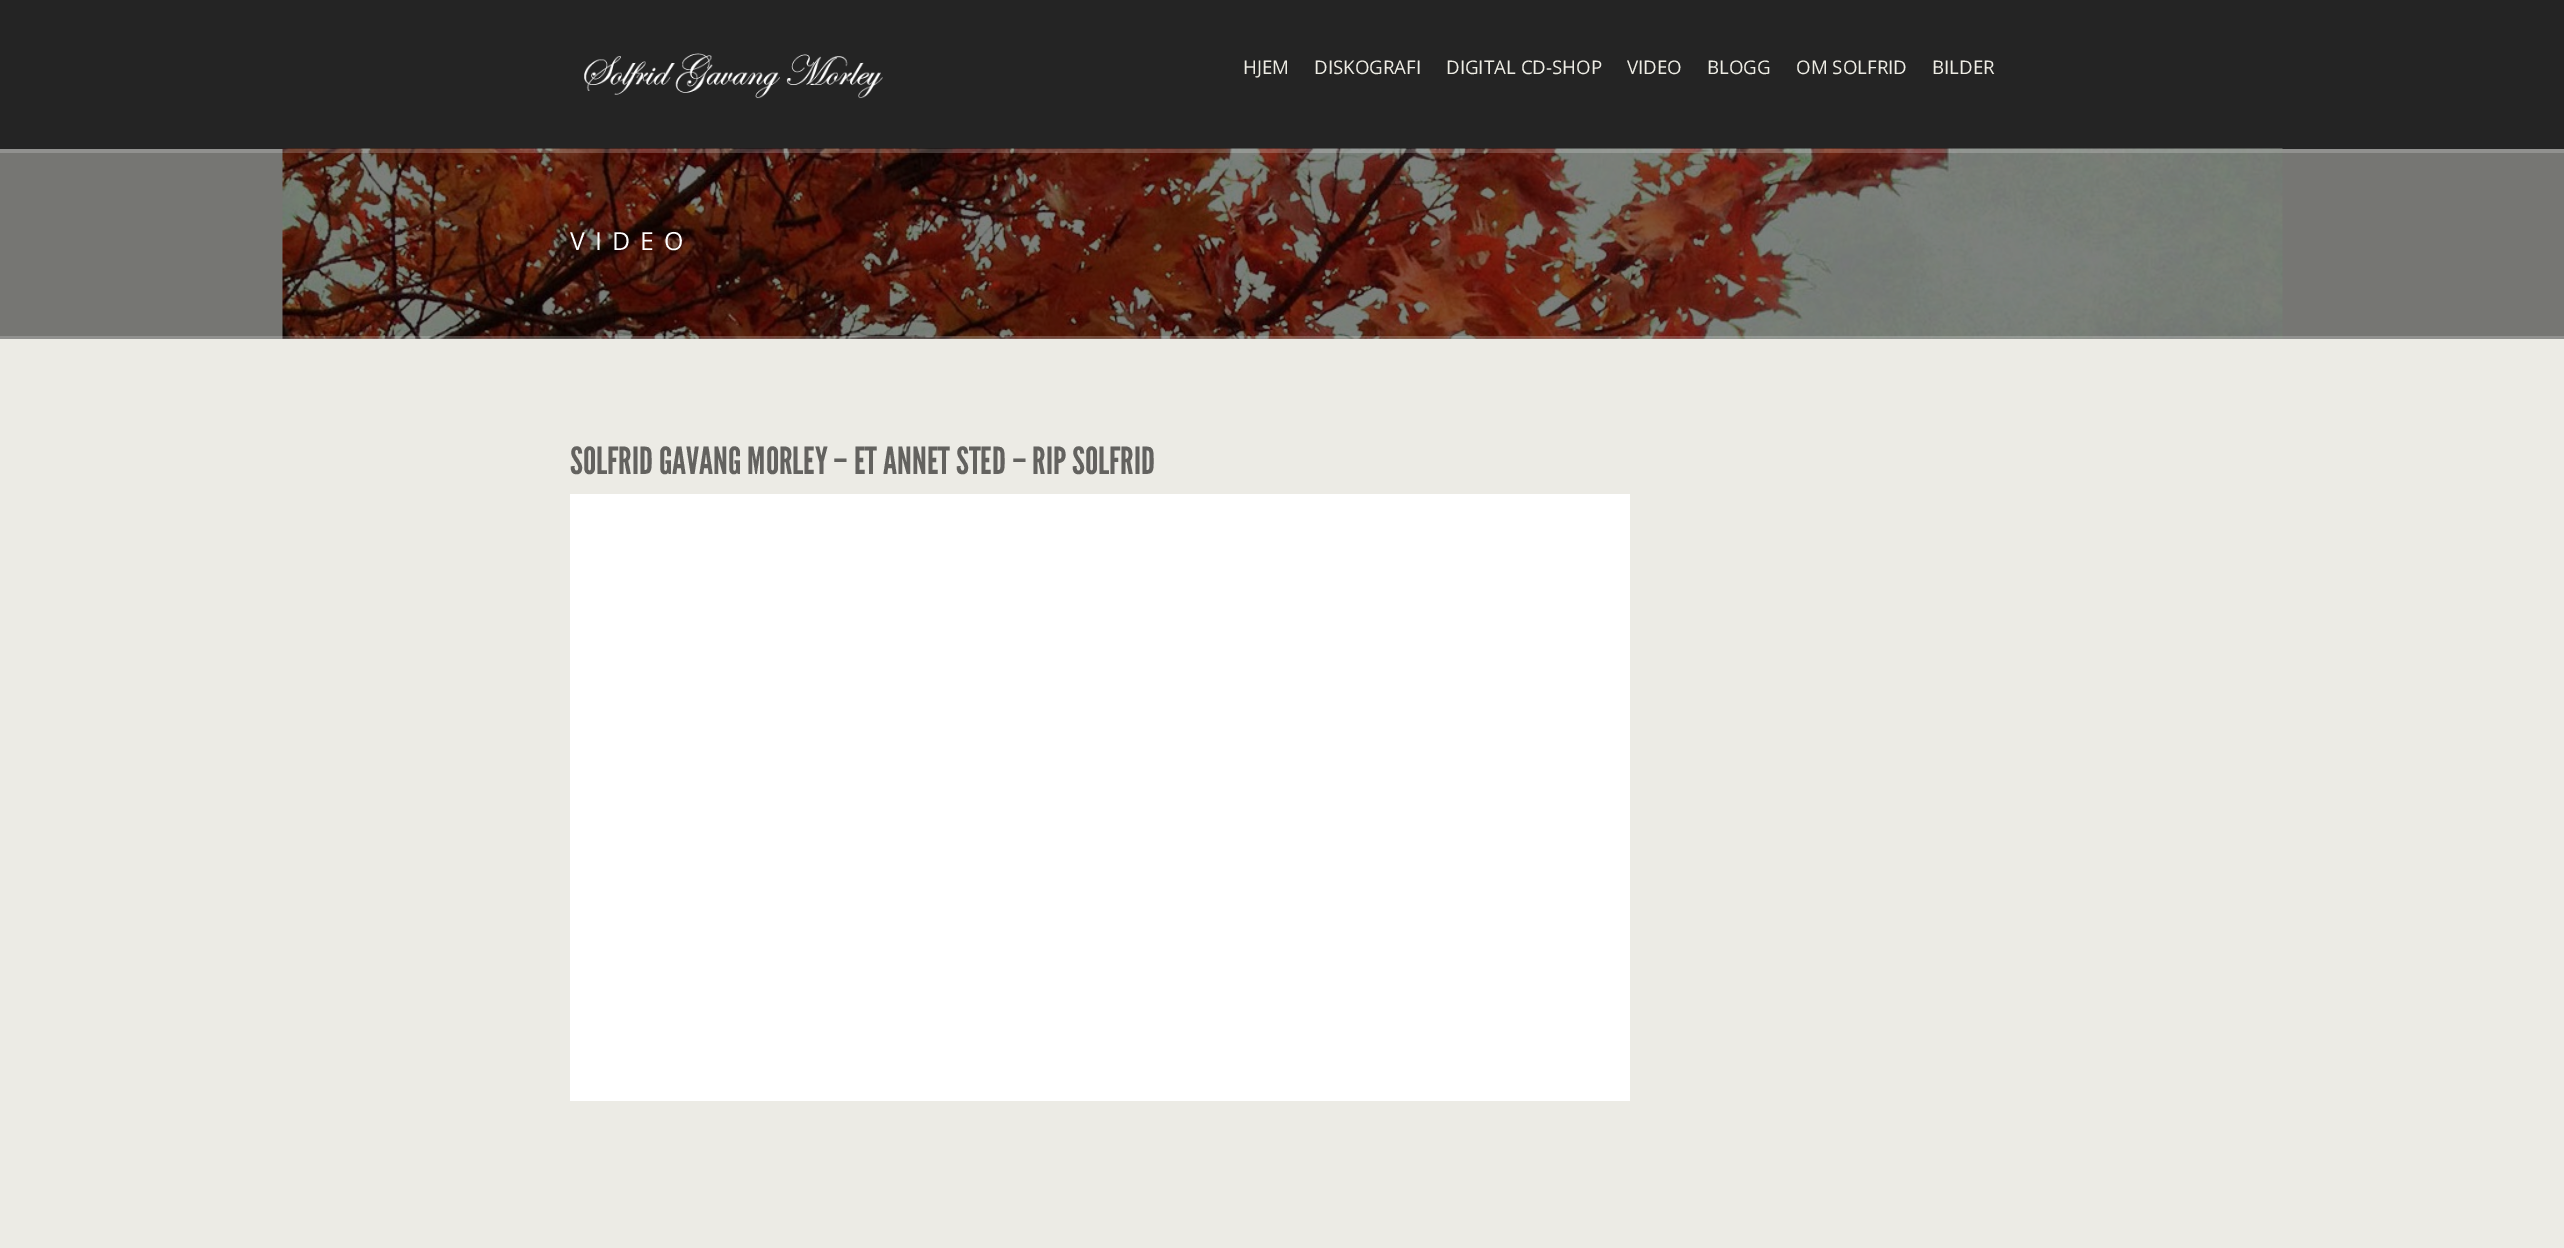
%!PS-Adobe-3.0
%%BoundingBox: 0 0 2564 1248
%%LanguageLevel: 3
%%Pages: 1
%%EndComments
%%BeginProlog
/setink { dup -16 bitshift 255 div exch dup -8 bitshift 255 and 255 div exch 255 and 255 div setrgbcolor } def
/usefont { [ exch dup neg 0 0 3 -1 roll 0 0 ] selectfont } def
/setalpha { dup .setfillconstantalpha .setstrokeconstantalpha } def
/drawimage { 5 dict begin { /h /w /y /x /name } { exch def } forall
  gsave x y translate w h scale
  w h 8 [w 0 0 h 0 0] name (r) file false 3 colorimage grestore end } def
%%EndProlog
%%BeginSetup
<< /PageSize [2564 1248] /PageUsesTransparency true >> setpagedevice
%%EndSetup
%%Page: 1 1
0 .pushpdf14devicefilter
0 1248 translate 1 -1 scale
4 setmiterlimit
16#ECEBE5 setink
0 0 2564 1248 rectfill
16#767673 setink
0 149 2564 190 rectfill
16#242424 setink
0 0 2564 149 rectfill
(img1.raw) 584 53 299 46 drawimage
/OpenSans-Regular 18.75 usefont
16#EEEDE5 setink
[
    [(HJEM) 1243 74]
    [(DISKOGRAFI) 1314 74]
    [(DIGITAL CD-SHOP) 1446 74]
    [(VIDEO) 1627 74]
    [(BLOGG) 1707 74]
    [(OM SOLFRID) 1796 74]
    [(BILDER) 1932 74]
] { aload pop moveto show } forall
(img2.raw) 282 148 2001 191 drawimage
0.2 setalpha
16#FFFFFF setink
0 149 2564 4 rectfill
0 336 2564 3 rectfill
/OpenSans-Regular 25 usefont
1 setalpha
570 250 moveto 10 0 (VIDEO) ashow
/LeagueGothic-Regular 37.5 usefont
16#63625F setink
570 474 moveto (SOLFRID GAVANG MORLEY – ET ANNET STED – RIP SOLFRID) show
16#FFFFFF setink
570 494 1060 607 rectfill
.poppdf14devicefilter showpage
%%EOF
